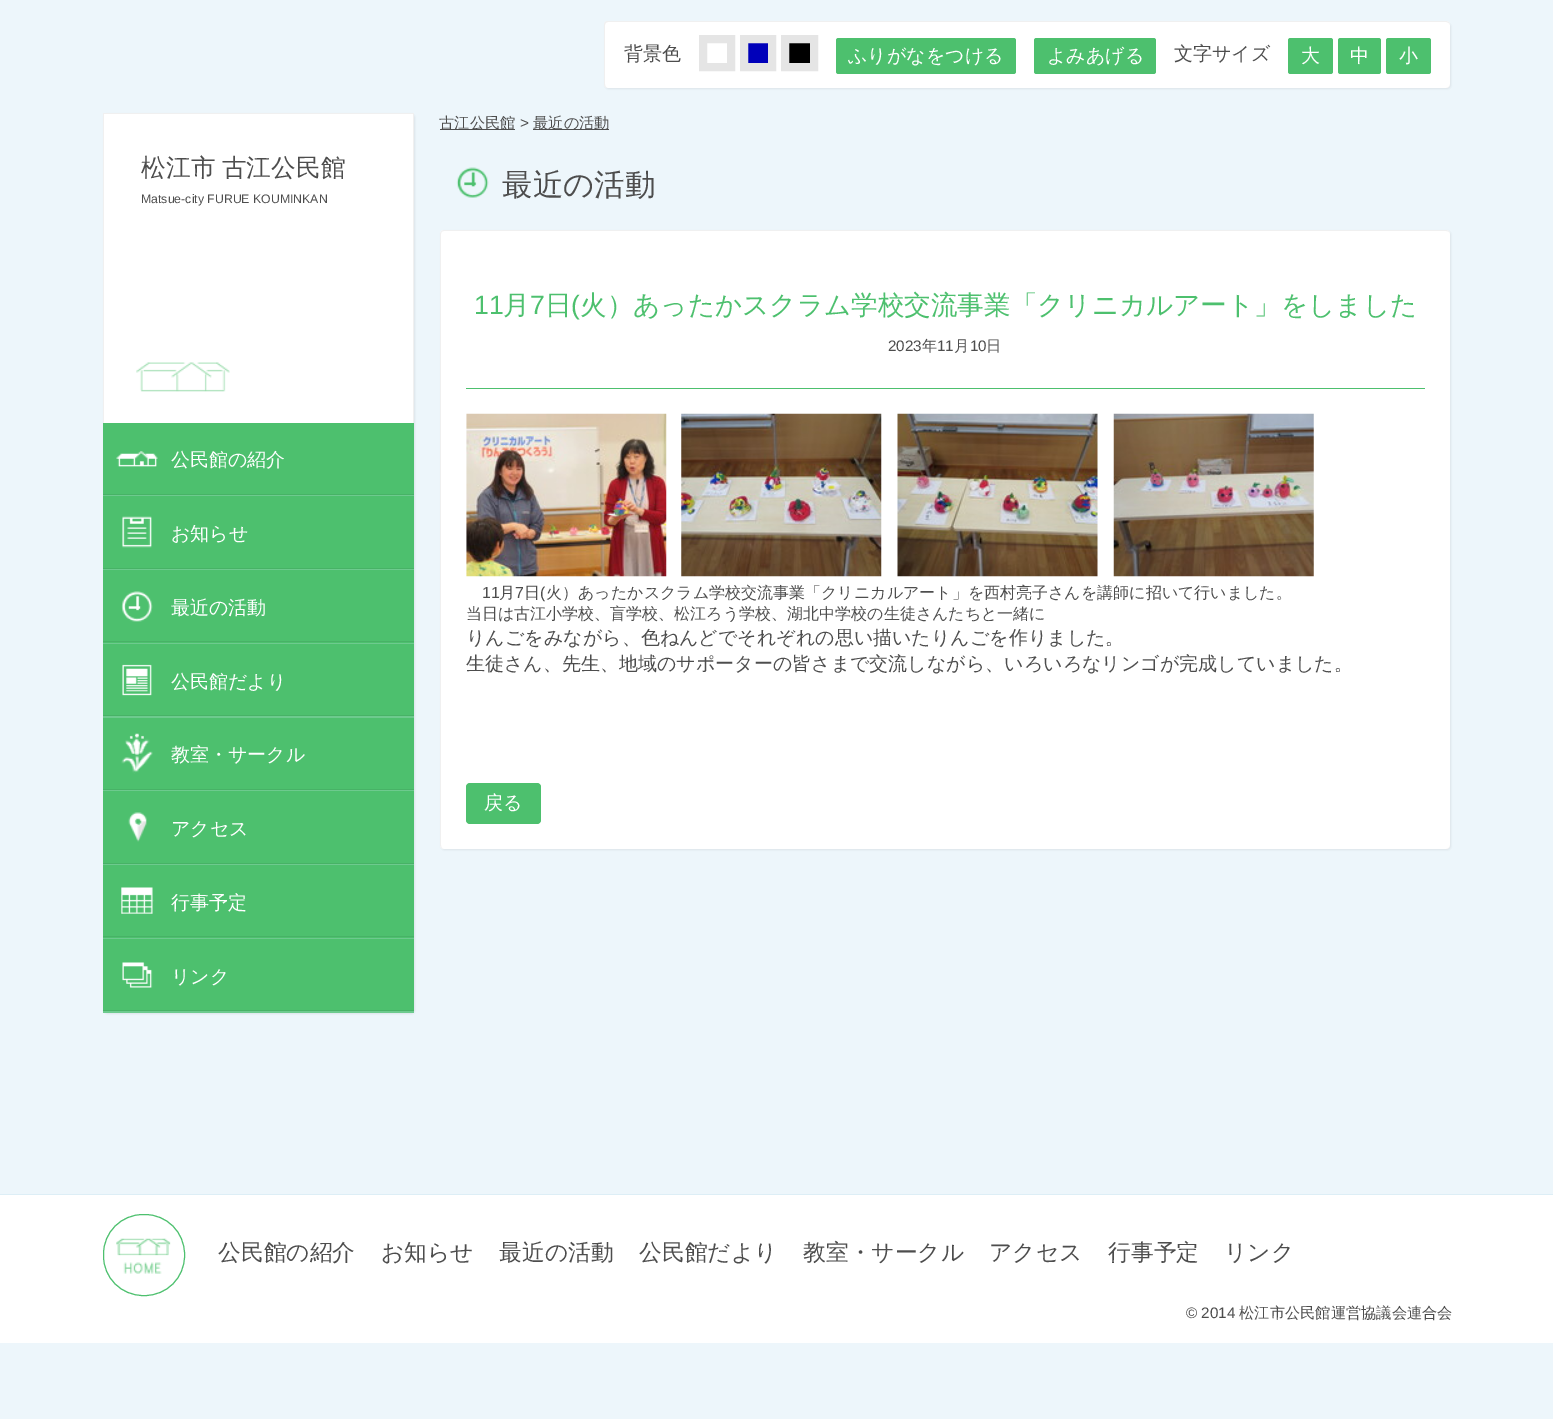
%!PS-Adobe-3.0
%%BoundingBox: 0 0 1553 1419
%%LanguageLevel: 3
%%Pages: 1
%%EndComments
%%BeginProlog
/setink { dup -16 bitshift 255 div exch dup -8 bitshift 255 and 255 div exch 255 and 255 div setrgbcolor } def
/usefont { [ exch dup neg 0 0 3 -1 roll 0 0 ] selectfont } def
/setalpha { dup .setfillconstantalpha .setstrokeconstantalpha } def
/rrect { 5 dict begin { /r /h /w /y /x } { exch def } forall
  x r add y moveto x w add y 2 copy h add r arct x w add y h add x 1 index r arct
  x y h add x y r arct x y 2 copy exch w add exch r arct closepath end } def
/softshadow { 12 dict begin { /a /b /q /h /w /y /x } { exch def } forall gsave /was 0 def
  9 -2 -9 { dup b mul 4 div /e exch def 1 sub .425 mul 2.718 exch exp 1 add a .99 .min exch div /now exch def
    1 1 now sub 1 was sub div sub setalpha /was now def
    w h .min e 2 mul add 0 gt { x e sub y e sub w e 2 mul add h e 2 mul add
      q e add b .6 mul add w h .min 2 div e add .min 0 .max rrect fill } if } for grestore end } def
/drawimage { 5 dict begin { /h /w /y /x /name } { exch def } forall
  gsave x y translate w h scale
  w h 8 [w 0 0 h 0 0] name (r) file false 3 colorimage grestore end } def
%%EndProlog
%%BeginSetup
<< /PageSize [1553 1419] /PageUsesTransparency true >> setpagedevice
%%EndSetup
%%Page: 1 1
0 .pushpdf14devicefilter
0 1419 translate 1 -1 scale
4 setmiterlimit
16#EDF6FB setink
0 0 1553 1419 rectfill
16#DCE4E9 setink
605 23 846 66 4 1 1 softshadow
16#FFFFFF setink
604 21 846 67 4 rrect fill
16#F0F0F0 setink
608 21 moveto 1446 21 lineto 1448 21 1450 23 1450 25 curveto 1450 84 lineto 1450 86 1448 88 1446 88 curveto 608 88 lineto 605 88 604 86 604 84 curveto 604 25 lineto 604 23 605 21 608 21 curveto closepath 608 22 moveto 1446 22 lineto 1448 22 1450 24 1450 25 curveto 1450 84 lineto 1450 86 1448 88 1446 88 curveto 608 88 lineto 606 88 605 86 605 84 curveto 605 25 lineto 605 24 606 22 608 22 curveto closepath eofill
/WenQuanYiZenHei-Medium 19 usefont
16#4D4D4D setink
624 60 moveto (背景色) show
16#E5E5E5 setink
8 setlinewidth
703 39 28 28 rectstroke
16#0000BA setink
744 39 moveto 772 39 lineto 772 67 lineto 744 67 lineto closepath gsave fill grestore
16#E5E5E5 setink
stroke
16#000000 setink
785 39 moveto 814 39 lineto 814 67 lineto 785 67 lineto closepath gsave fill grestore
16#E5E5E5 setink
stroke
16#4DC06E setink
836 38 180 36 2.5 rrect fill
16#FFFFFF setink
848 62 moveto (ふりがなをつける) show
16#4DC06E setink
1034 38 122 36 2.5 rrect fill
16#FFFFFF setink
1047 62 moveto (よみあげる) show
16#4D4D4D setink
1174 60 moveto (文字サイズ) show
16#4DC06E setink
1288 38 45 36 2.5 rrect fill
16#FFFFFF setink
1301 62 moveto (大) show
16#4DC06E setink
1338 38 43 36 2.5 rrect fill
16#FFFFFF setink
1350 62 moveto (中) show
16#4DC06E setink
1386 38 45 36 2.5 rrect fill
16#FFFFFF setink
1399 62 moveto (小) show
16#DCE4E9 setink
104 114 311 900 4 1 1 softshadow
16#FFFFFF setink
103 113 311 900 4 rrect fill
(img1.raw) 136 362 94 30 drawimage
[
    [103 113 311 1 16#F0F0F0]
    [413 113 1 310 16#F0F0F0]
    [103 113 1 310 16#F0F0F0]
] { aload pop setink rectfill } forall
/WenQuanYiZenHei-Medium 24.75 usefont
16#4D4D4D setink
141 176 moveto -1 0 32 (松江市 古江公民館) widthshow
/LiberationSans-Regular 12.3 usefont
141 203 moveto (Matsue-city FURUE KOUMINKAN) show
16#6DCA8E setink
103 495 moveto 103 496 lineto 414 496 lineto 414 424 lineto 414 495 lineto closepath fill
16#4DC06E setink
103 423 311 71 rectfill
(img2.raw) 116 451 42 16 drawimage
16#47B266 setink
103 494 311 1 rectfill
/WenQuanYiZenHei-Medium 19 usefont
16#FFFFFF setink
171 466 moveto (公民館の紹介) show
16#6DCA8E setink
103 569 moveto 103 570 lineto 414 570 lineto 414 498 lineto 414 569 lineto closepath fill
16#4DC06E setink
103 496 311 72 rectfill
(img3.raw) 122 516 30 32 drawimage
16#47B266 setink
103 568 311 1 rectfill
16#FFFFFF setink
171 540 moveto (お知らせ) show
16#6DCA8E setink
103 642 moveto 103 644 lineto 414 644 lineto 414 571 lineto 414 642 lineto closepath fill
16#4DC06E setink
103 570 311 73 rectfill
(img4.raw) 121 591 32 31 drawimage
16#47B266 setink
103 641 311 1 rectfill
16#FFFFFF setink
171 614 moveto (最近の活動) show
16#6DCA8E setink
103 716 moveto 103 718 lineto 414 718 lineto 414 645 lineto 414 716 lineto closepath fill
16#4DC06E setink
103 644 311 71 rectfill
(img5.raw) 122 664 30 32 drawimage
16#47B266 setink
103 715 311 1 rectfill
16#FFFFFF setink
171 688 moveto (公民館だより) show
16#6DCA8E setink
103 790 moveto 103 791 lineto 414 791 lineto 414 719 lineto 414 790 lineto closepath fill
16#4DC06E setink
103 718 311 71 rectfill
(img6.raw) 121 733 32 41 drawimage
16#47B266 setink
103 789 311 1 rectfill
16#FFFFFF setink
171 761 moveto (教室・サークル) show
16#6DCA8E setink
103 864 moveto 103 865 lineto 414 865 lineto 414 793 lineto 414 864 lineto closepath fill
16#4DC06E setink
103 791 311 72 rectfill
(img7.raw) 128 812 19 30 drawimage
16#47B266 setink
103 863 311 1 rectfill
16#FFFFFF setink
171 835 moveto (アクセス) show
16#6DCA8E setink
103 938 moveto 103 939 lineto 414 939 lineto 414 866 lineto 414 938 lineto closepath fill
16#4DC06E setink
103 865 311 73 rectfill
(img8.raw) 121 887 33 27 drawimage
16#47B266 setink
103 936 311 1 rectfill
16#FFFFFF setink
171 909 moveto (行事予定) show
16#6DCA8E setink
103 1011 moveto 103 1013 lineto 414 1013 lineto 414 940 lineto 414 1011 lineto closepath fill
16#4DC06E setink
103 939 311 71 rectfill
(img9.raw) 122 962 31 26 drawimage
16#47B266 setink
103 1010 311 1 rectfill
16#FFFFFF setink
171 983 moveto (リンク) show
16#4D4D4D setink
440 129 75 1 rectfill
/WenQuanYiZenHei-Medium 15.25 usefont
439 128 moveto (古江公民館) show
/LiberationSans-Regular 15.25 usefont
520 128 moveto (>) show
533 129 76 1 rectfill
/WenQuanYiZenHei-Medium 15.25 usefont
533 128 moveto (最近の活動) show
(img10.raw) 456 167 33 31 drawimage
/WenQuanYiZenHei-Medium 30.5 usefont
502 195 moveto (最近の活動) show
16#DCE4E9 setink
441 231 1010 619 4 1 1 softshadow
16#FFFFFF setink
440 230 1010 619 4 rrect fill
16#F0F0F0 setink
444 230 moveto 1446 230 lineto 1448 230 1450 232 1450 234 curveto 1450 845 lineto 1450 847 1448 849 1446 849 curveto 444 849 lineto 442 849 440 847 440 845 curveto 440 234 lineto 440 232 442 230 444 230 curveto closepath 444 231 moveto 1446 231 lineto 1448 231 1450 232 1450 234 curveto 1450 845 lineto 1450 847 1448 849 1446 849 curveto 444 849 lineto 442 849 441 847 441 845 curveto 441 234 lineto 441 232 442 231 444 231 curveto closepath eofill
16#4DC06E setink
466 388 959 1 rectfill
/LiberationSans-Regular 26.6 usefont
474 314 moveto (11) show
/WenQuanYiZenHei-Medium 26.6 usefont
503 314 moveto (月) show
/LiberationSans-Regular 26.6 usefont
530 314 moveto (7) show
/WenQuanYiZenHei-Medium 26.6 usefont
545 314 moveto (日) show
/LiberationSans-Regular 26.6 usefont
571 314 moveto (\() show
/WenQuanYiZenHei-Medium 26.6 usefont
580 314 moveto (火）あったかスクラム学校交流事業「クリニカルアート」をしました) show
/LiberationSans-Regular 15.25 usefont
16#4D4D4D setink
888 351 moveto (2023) show
/WenQuanYiZenHei-Medium 15.25 usefont
922 351 moveto (年) show
/LiberationSans-Regular 15.25 usefont
937 351 moveto (11) show
/WenQuanYiZenHei-Medium 15.25 usefont
954 351 moveto (月) show
/LiberationSans-Regular 15.25 usefont
970 351 moveto (10) show
/WenQuanYiZenHei-Medium 15.25 usefont
986 351 moveto (日) show
(img11.raw) 466 413 201 164 drawimage
(img12.raw) 681 413 201 164 drawimage
(img13.raw) 897 413 201 164 drawimage
(img14.raw) 1113 413 201 164 drawimage
/LiberationSans-Regular 16 usefont
482 598 moveto (11) show
/WenQuanYiZenHei-Medium 16 usefont
499 598 moveto (月) show
/LiberationSans-Regular 16 usefont
515 598 moveto (7) show
/WenQuanYiZenHei-Medium 16 usefont
524 598 moveto (日) show
/LiberationSans-Regular 16 usefont
540 598 moveto (\() show
/WenQuanYiZenHei-Medium 16 usefont
546 598 moveto (火）あったかスクラム学校交流事業「クリニカルアート」を西村亮子さんを講師に招いて行いました。) show
466 619 moveto (当日は古江小学校、盲学校、松江ろう学校、湖北中学校の生徒さんたちと一緒に) show
/WenQuanYiZenHei-Medium 19 usefont
466 644 moveto (りんごをみながら、色ねんどでそれぞれの思い描いたりんごを作りました。) show
466 670 moveto (生徒さん、先生、地域のサポーターの皆さまで交流しながら、いろいろなリンゴが完成していました。) show
16#4DC06E setink
466 783 75 41 4 rrect fill
16#FFFFFF setink
484 809 moveto (戻る) show
0 1195 1553 148 rectfill
16#DDEEF6 setink
0 1194 1553 1 rectfill
16#4DC06E setink
1 setlinewidth
103.5 1214.5 81 81 39.5 rrect stroke
(img15.raw) 116 1238 55 36 drawimage
/WenQuanYiZenHei-Medium 22.75 usefont
16#4D4D4D setink
[
    [(公民館の紹介) 218 1260]
    [(お知らせ) 381 1260]
    [(最近の活動) 499 1260]
    [(公民館だより) 639 1260]
    [(教室・サークル) 803 1260]
    [(アクセス) 989 1260]
    [(行事予定) 1108 1260]
    [(リンク) 1224 1260]
] { aload pop moveto show } forall
/LiberationSans-Regular 15.25 usefont
1186 1318 moveto (© 2014) show
/WenQuanYiZenHei-Medium 15.25 usefont
1239 1318 moveto (松江市公民館運営協議会連合会) show
.poppdf14devicefilter showpage
%%EOF
